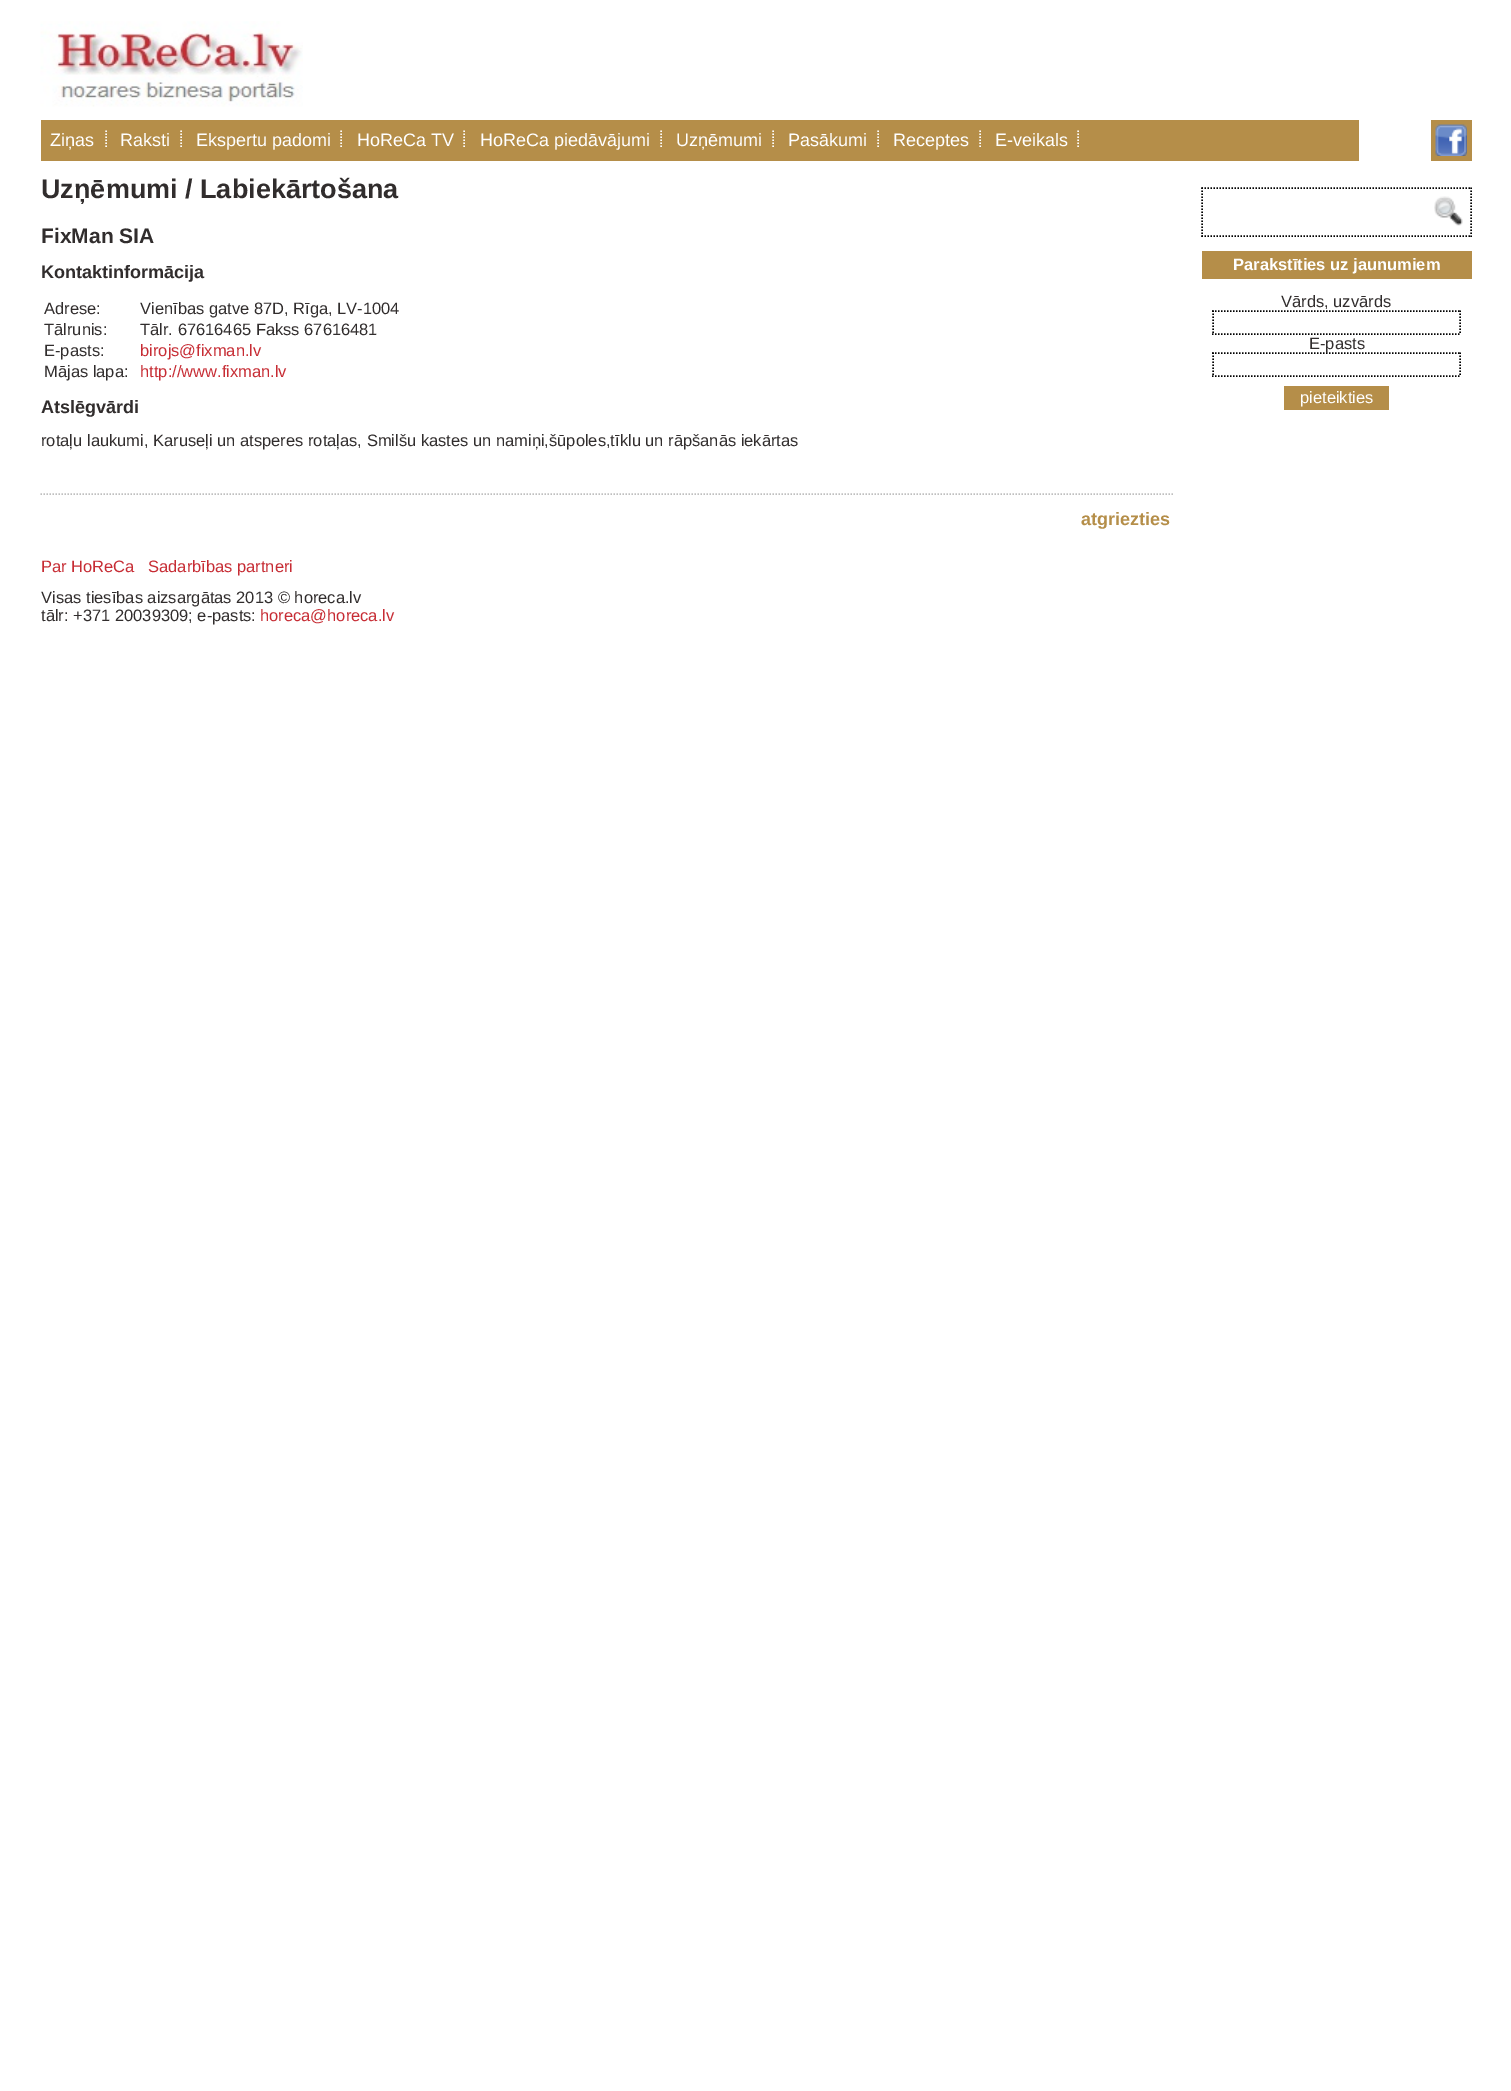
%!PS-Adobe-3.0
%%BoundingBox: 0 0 1511 2091
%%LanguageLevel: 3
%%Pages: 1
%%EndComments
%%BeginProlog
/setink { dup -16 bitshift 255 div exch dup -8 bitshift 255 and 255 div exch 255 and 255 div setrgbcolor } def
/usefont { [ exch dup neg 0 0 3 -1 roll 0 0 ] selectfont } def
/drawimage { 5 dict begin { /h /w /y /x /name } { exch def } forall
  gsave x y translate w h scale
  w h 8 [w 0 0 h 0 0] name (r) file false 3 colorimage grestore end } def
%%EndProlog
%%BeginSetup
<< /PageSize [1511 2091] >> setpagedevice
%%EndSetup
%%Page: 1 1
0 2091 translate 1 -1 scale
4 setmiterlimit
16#FFFFFF setink
0 0 1511 2091 rectfill
(img1.raw) 40 21 263 86 drawimage
16#B58E49 setink
41 120 1318 41 rectfill
/LiberationSans-Regular 18 usefont
16#FFFFFF setink
50 146 moveto (Ziņas) show
1.5 setlinewidth
[1.5 1.5] 0 setdash
106 130.5 moveto 106 148.5 lineto stroke
120 146 moveto (Raksti) show
181 130.5 moveto 181 148.5 lineto stroke
196 146 moveto (Ekspertu padomi) show
341 130.5 moveto 341 148.5 lineto stroke
357 146 moveto (HoReCa TV) show
464 130.5 moveto 464 148.5 lineto stroke
480 146 moveto (HoReCa piedāvājumi) show
661 130.5 moveto 661 148.5 lineto stroke
676 146 moveto (Uzņēmumi) show
773 130.5 moveto 773 148.5 lineto stroke
788 146 moveto (Pasākumi) show
878 130.5 moveto 878 148.5 lineto stroke
893 146 moveto (Receptes) show
980 130.5 moveto 980 148.5 lineto stroke
995 146 moveto (E-veikals) show
1078 130.5 moveto 1078 148.5 lineto stroke
16#B58E49 setink
1431 120 41 41 rectfill
(img2.raw) 1435 124 32 32 drawimage
/LiberationSans-Bold 27 usefont
16#312D2D setink
41 198 moveto (Uzņēmumi / Labiekārtošana) show
/LiberationSans-Bold 21 usefont
41 243 moveto (FixMan SIA) show
/LiberationSans-Bold 18 usefont
41 278 moveto (Kontaktinformācija) show
/LiberationSans-Regular 16.5 usefont
[
    [(Adrese:) 44 314]
    [(Vienības gatve 87D, Rīga, LV-1004) 140 314]
    [(Tālrunis:) 44 335]
    [(Tālr. 67616465 Fakss 67616481) 140 335]
    [(E-pasts:) 44 356]
] { aload pop moveto show } forall
16#C72C34 setink
140 356 moveto (birojs@fixman.lv) show
16#312D2D setink
44 377 moveto (Mājas lapa:) show
16#C72C34 setink
140 377 moveto (http://www.fixman.lv) show
/LiberationSans-Bold 18 usefont
16#312D2D setink
41 413 moveto (Atslēgvārdi) show
/LiberationSans-Regular 16.5 usefont
41 446 moveto (rotaļu laukumi, Karuseļi un atsperes rotaļas, Smilšu kastes un namiņi,šūpoles,tīklu un rāpšanās iekārtas) show
16#BFBFBF setink
40.5 494 moveto 1174.5 494 lineto stroke
/LiberationSans-Bold 18 usefont
16#B58E49 setink
1081 525 moveto (atgriezties) show
16#000000 setink
1201.5 188 moveto 1471.5 188 lineto stroke
1471 187.5 moveto 1471 237 lineto stroke
1201.5 236 moveto 1471.5 236 lineto stroke
1202 187.5 moveto 1202 237 lineto stroke
(img3.raw) 1434 196 29 30 drawimage
16#B58E49 setink
1202 251 270 28 rectfill
/LiberationSans-Bold 16.5 usefont
16#FFFFFF setink
1233 270 moveto (Parakstīties uz jaunumiem) show
/LiberationSans-Regular 16.5 usefont
16#312D2D setink
1281 307 moveto (Vārds, uzvārds) show
16#000000 setink
1212 311 moveto 1461 311 lineto stroke
1460 310.5 moveto 1460 334.5 lineto stroke
1212 334 moveto 1461 334 lineto stroke
1213 310.5 moveto 1213 334.5 lineto stroke
16#312D2D setink
1309 349 moveto (E-pasts) show
16#000000 setink
1212 353 moveto 1461 353 lineto stroke
1460 352.5 moveto 1460 376.5 lineto stroke
1212 376 moveto 1461 376 lineto stroke
1213 352.5 moveto 1213 376.5 lineto stroke
16#B58E49 setink
1284 386 105 24 rectfill
16#FFFFFF setink
1300 403 moveto (pieteikties) show
16#C72C34 setink
41 572 moveto (Par HoReCa) show
148 572 moveto (Sadarbības partneri) show
16#312D2D setink
41 603 moveto (Visas tiesības aizsargātas 2013 © horeca.lv) show
41 621 moveto (tālr: +371 20039309; e-pasts:) show
16#C72C34 setink
260 621 moveto (horeca@horeca.lv) show
showpage
%%EOF
